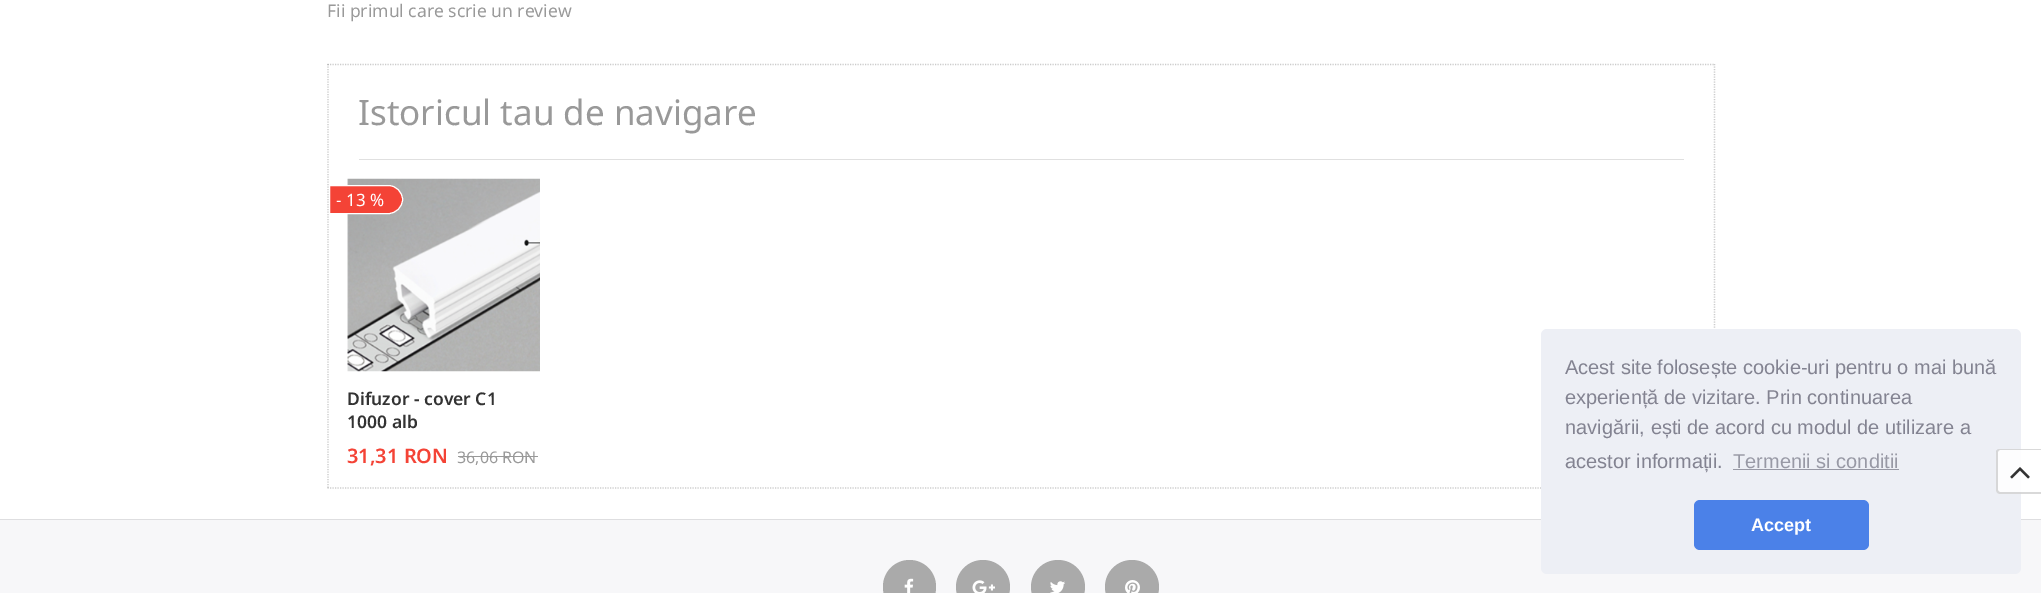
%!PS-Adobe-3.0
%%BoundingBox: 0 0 2041 593
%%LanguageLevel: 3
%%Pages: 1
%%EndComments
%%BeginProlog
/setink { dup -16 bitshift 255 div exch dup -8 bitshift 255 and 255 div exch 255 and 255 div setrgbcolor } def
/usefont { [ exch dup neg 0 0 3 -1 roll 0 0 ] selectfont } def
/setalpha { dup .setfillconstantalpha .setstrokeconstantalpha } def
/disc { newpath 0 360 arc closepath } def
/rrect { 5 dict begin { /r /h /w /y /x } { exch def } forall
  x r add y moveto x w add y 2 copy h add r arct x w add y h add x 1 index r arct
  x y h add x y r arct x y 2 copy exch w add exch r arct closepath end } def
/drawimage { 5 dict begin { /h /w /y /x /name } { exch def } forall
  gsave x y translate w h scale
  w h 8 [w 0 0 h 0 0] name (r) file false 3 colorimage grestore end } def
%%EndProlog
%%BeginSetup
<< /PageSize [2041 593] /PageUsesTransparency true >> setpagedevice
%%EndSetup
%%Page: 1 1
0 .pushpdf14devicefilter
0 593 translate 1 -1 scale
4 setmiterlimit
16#FFFFFF setink
0 0 2041 593 rectfill
/NotoSans-Regular 17.5 usefont
16#999999 setink
327 17 moveto (Fii primul care scrie un review) show
16#CCCCCC setink
1.2 setlinewidth
[1.25 1.25] 0 setdash
327.5 64.5 moveto 1715 64.5 lineto stroke
1714.5 64 moveto 1714.5 489 lineto stroke
0.2 setalpha
16#000000 setink
327.5 488 moveto 1715 488 lineto stroke
328 64 moveto 328 489 lineto stroke
1 setalpha
16#E0E0E0 setink
359 159 1325 1 rectfill
/NotoSans-Regular 35 usefont
16#999999 setink
358 125 moveto (Istoricul tau de navigare) show
(img1.raw) 347 178 193 194 drawimage
16#F44336 setink
329.5 185.5 moveto 388.5 185.5 lineto 396 185.5 402.5 192 402.5 199.5 curveto 402.5 207 396 213.5 388.5 213.5 curveto 329.5 213.5 lineto closepath gsave fill grestore
16#FFFFFF setink
1 setlinewidth
[] 0 setdash
stroke
/NotoSans-Regular 17 usefont
336 206 moveto (- 13 %) show
/NotoSans-SemiBold 17.5 usefont
16#333333 setink
347 405 moveto (Difuzor - cover C1) show
347 428 moveto (1000 alb) show
/NotoSans-SemiBold 20 usefont
16#F44336 setink
347 463 moveto (31,31 RON) show
/NotoSans-Regular 16 usefont
16#999999 setink
457 463 moveto (36,06 RON) show
[
    [458 456 80 1 16#999999]
    [0 520 2041 73 16#F7F7F9]
    [0 519 2041 1 16#DEDEE0]
] { aload pop setink rectfill } forall
16#AAAAAA setink
883 560 53 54 26.5 rrect fill
(img2.raw) 904 578 10 15 drawimage
983 587 27 disc fill
(img3.raw) 972 580 23 13 drawimage
1058 587 27 disc fill
(img4.raw) 1050 581 15 12 drawimage
1132 587 27 disc fill
(img5.raw) 1125 580 15 13 drawimage
16#EDEFF5 setink
1541 329 480 245 6 rrect fill
0.9 setalpha
16#FFFFFF setink
2000 449 moveto 2041 449 lineto 2041 494 lineto 2000 494 lineto 1998 494 1996 492 1996 490 curveto 1996 453 lineto 1996 451 1998 449 2000 449 curveto closepath fill
0.15 setalpha
16#000000 setink
2000 449 moveto 2041 449 lineto 2041 494 lineto 2000 494 lineto 1998 494 1996 492 1996 490 curveto 1996 452 lineto 1996 450 1998 449 2000 449 curveto closepath 2000 450 moveto 2041 450 lineto 2041 492 lineto 2000 492 lineto 1999 492 1998 491 1998 490 curveto 1998 452 lineto 1998 451 1999 450 2000 450 curveto closepath eofill
1 setalpha
(img6.raw) 2010 467 20 12 drawimage
/LiberationSans-Regular 20 usefont
16#838391 setink
[
    [(Acest site folosește cookie-uri pentru o mai bună) 1565 374]
    [(experiență de vizitare. Prin continuarea) 1565 404]
    [(navigării, ești de acord cu modul de utilizare a) 1565 434]
    [(acestor informații.) 1565 468]
] { aload pop moveto show } forall
16#9899A5 setink
1733 468 moveto (Termenii si conditii) show
1733 469 166 1 rectfill
16#4B81E8 setink
1694 500 175 50 6 rrect fill
/LiberationSans-Bold 18 usefont
16#FFFFFF setink
1751 531 moveto (Accept) show
.poppdf14devicefilter showpage
%%EOF
